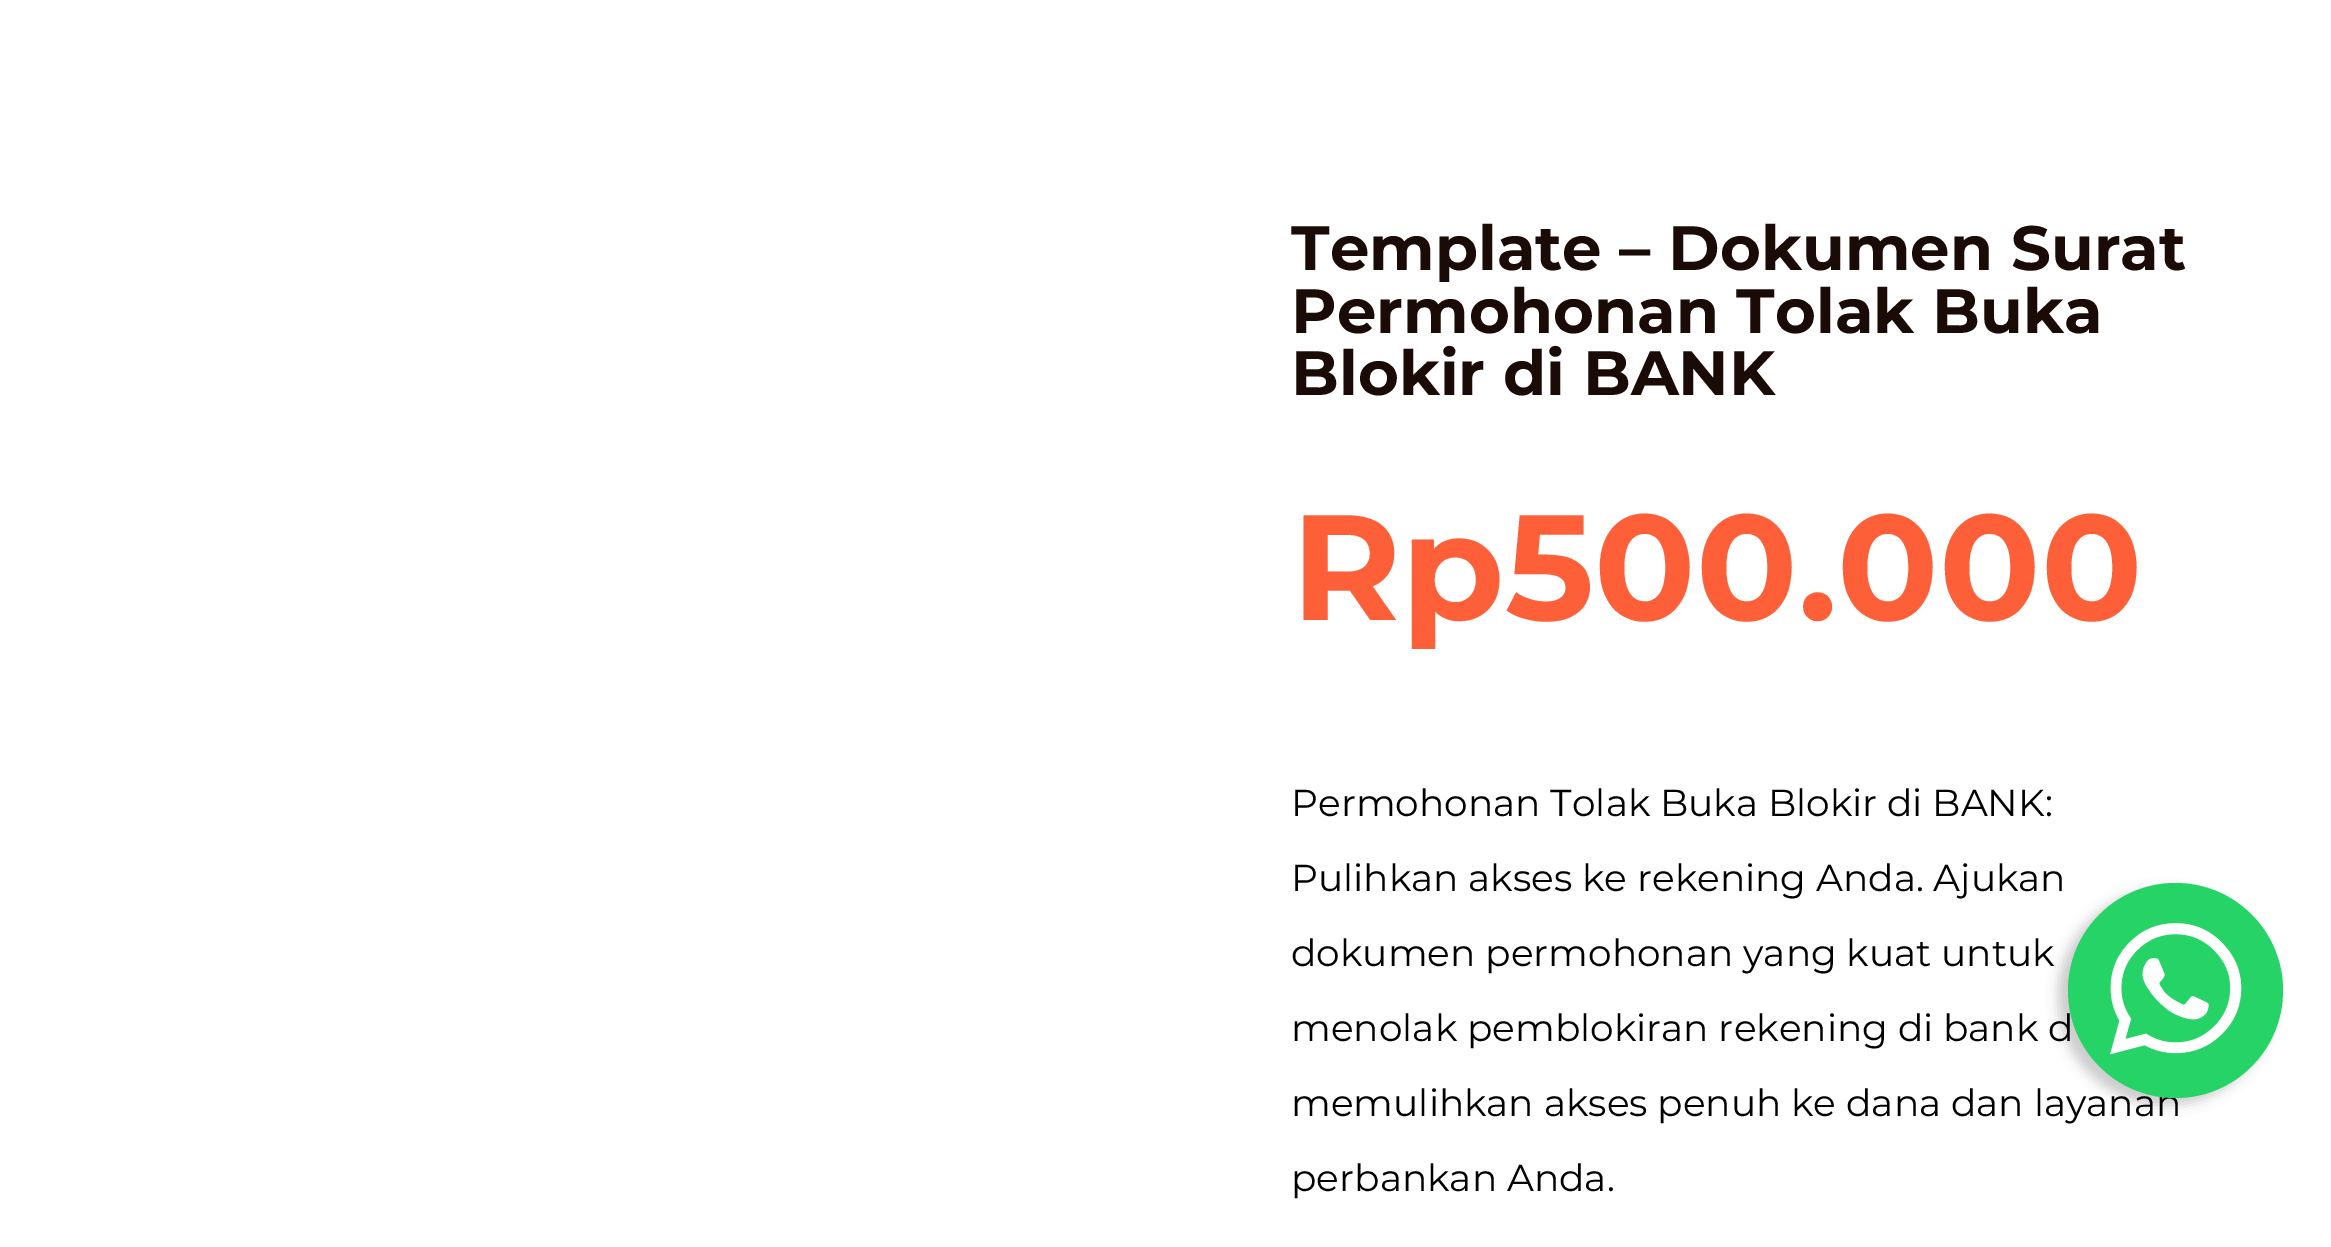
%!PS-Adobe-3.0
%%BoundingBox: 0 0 2331 1247
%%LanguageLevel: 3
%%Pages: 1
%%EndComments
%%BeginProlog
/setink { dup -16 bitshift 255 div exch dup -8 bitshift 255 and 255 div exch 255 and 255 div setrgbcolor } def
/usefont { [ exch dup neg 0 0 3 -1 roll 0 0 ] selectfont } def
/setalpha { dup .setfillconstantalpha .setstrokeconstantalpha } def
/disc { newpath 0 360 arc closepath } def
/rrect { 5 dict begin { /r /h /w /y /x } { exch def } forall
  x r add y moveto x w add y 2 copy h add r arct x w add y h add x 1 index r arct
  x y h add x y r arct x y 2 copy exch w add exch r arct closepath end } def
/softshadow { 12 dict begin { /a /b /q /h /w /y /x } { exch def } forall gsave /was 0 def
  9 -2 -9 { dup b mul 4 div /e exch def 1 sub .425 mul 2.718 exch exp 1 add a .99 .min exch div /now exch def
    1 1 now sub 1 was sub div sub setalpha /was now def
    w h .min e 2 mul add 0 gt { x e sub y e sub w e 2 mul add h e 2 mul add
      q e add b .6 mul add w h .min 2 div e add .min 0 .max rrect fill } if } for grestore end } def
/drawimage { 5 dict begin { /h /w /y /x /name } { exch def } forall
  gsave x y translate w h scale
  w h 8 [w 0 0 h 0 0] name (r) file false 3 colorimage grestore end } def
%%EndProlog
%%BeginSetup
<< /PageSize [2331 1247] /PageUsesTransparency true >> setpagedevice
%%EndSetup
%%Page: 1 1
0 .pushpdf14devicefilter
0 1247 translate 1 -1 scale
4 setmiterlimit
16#FFFFFF setink
0 0 2331 1247 rectfill
/Montserrat-Bold 62.5 usefont
16#1A0B06 setink
[
    [(Template – Dokumen Surat) 1291 270]
    [(Permohonan Tolak Buka) 1291 333]
    [(Blokir di BANK) 1291 395]
] { aload pop moveto show } forall
/Montserrat-Bold 150 usefont
16#FD5F38 setink
1291 620 moveto (Rp500.000) show
/Montserrat-Regular 37.5 usefont
16#000000 setink
[
    [(Permohonan Tolak Buka Blokir di BANK:) 1291 816]
    [(Pulihkan akses ke rekening Anda. Ajukan) 1291 891]
    [(dokumen permohonan yang kuat untuk) 1291 966]
    [(menolak pemblokiran rekening di bank d) 1291 1041]
    [(memulihkan akses penuh ke dana dan layanan) 1291 1116]
    [(perbankan Anda.) 1291 1191]
] { aload pop moveto show } forall
2058 890 215 215 107.5 6 0.2 softshadow
16#25D366 setink
2175.5 990.5 107.5 disc fill
(img1.raw) 2110 923 132 132 drawimage
.poppdf14devicefilter showpage
%%EOF
